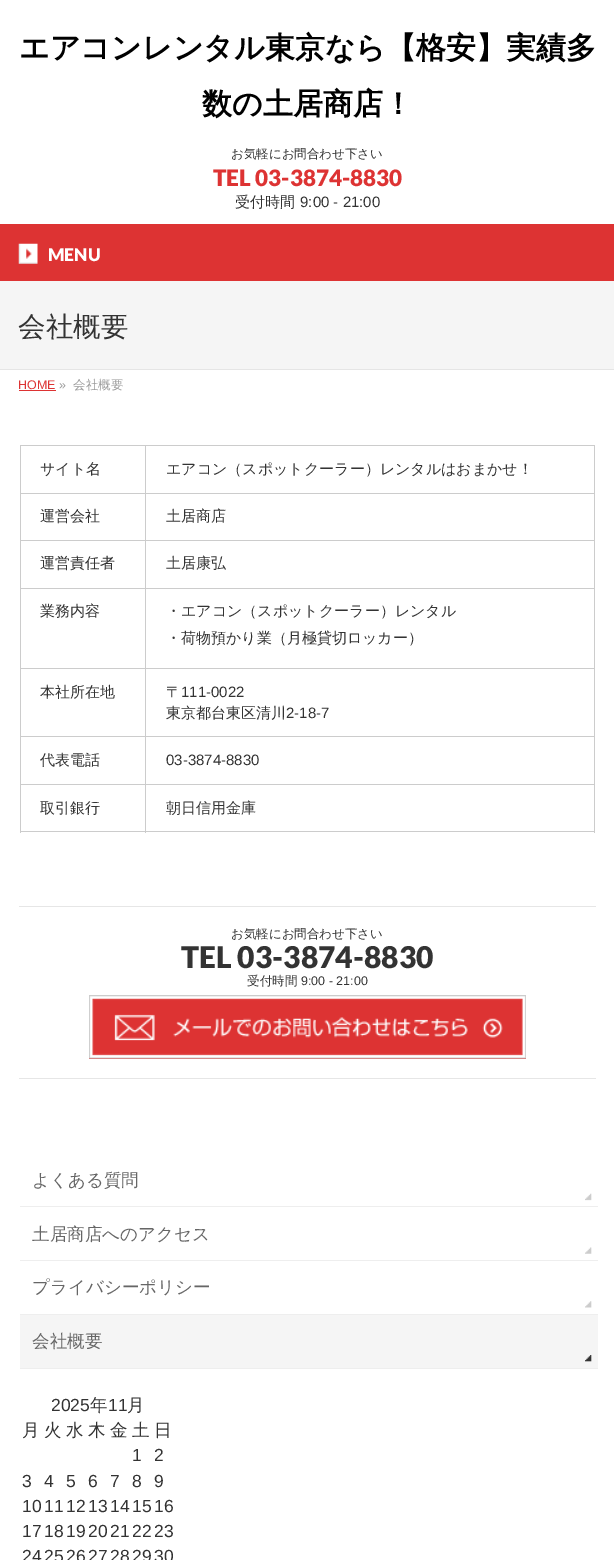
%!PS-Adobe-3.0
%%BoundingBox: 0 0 614 1560
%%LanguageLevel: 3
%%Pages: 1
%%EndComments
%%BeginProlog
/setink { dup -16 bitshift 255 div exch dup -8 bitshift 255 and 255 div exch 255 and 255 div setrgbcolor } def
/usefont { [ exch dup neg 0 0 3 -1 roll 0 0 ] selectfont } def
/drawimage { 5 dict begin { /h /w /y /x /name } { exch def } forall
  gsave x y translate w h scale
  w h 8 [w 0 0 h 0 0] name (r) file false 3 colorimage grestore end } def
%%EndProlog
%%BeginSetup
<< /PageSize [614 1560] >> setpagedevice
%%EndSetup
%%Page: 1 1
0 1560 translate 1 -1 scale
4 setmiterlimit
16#FFFFFF setink
0 0 614 1560 rectfill
/WenQuanYiZenHei-Bold 30 usefont
16#000000 setink
19 58 moveto (エアコンレンタル東京なら【格安】実績多) show
202 114 moveto (数の土居商店！) show
/WenQuanYiZenHei-Medium 12.5 usefont
16#333333 setink
231 158 moveto (お気軽にお問合わせ下さい) show
/Lato-Black 22.5 usefont
16#DD3333 setink
213 186 moveto (TEL 03-3874-8830) show
/WenQuanYiZenHei-Medium 15 usefont
16#333333 setink
235 207 moveto (受付時間) show
/LiberationSans-Regular 15 usefont
300 207 moveto (9:00 - 21:00) show
16#DD3333 setink
0 224 614 57 rectfill
(img1.raw) 18 243 20 21 drawimage
/Lato-Black 17.5 usefont
16#FFFFFF setink
48 261 moveto (MENU) show
16#F5F5F5 setink
0 281 614 88 rectfill
16#E5E5E5 setink
0 369 614 1 rectfill
/WenQuanYiZenHei-Medium 27.5 usefont
16#333333 setink
18 336 moveto (会社概要) show
/LiberationSans-Regular 12.5 usefont
16#DD3333 setink
18 389 moveto (HOME) show
19 390 37 1 rectfill
16#999999 setink
59 389 moveto (») show
/WenQuanYiZenHei-Medium 12.5 usefont
73 389 moveto (会社概要) show
16#CCCCCC setink
20 445 575 1 rectfill
/WenQuanYiZenHei-Medium 15 usefont
16#333333 setink
40 474 moveto (サイト名) show
[
    [145 493 450 1 16#CCCCCC]
    [145 540 450 1 16#CCCCCC]
    [145 588 450 1 16#CCCCCC]
    [145 668 450 1 16#CCCCCC]
    [145 736 450 1 16#CCCCCC]
    [145 784 450 1 16#CCCCCC]
    [594 784 1 49 16#CCCCCC]
    [145 831 450 1 16#CCCCCC]
    [145 784 1 49 16#CCCCCC]
    [20 784 126 1 16#CCCCCC]
    [145 736 1 49 16#CCCCCC]
    [20 736 126 1 16#CCCCCC]
    [145 668 1 70 16#CCCCCC]
    [20 668 126 1 16#CCCCCC]
    [145 588 1 81 16#CCCCCC]
    [20 588 126 1 16#CCCCCC]
    [145 540 1 49 16#CCCCCC]
    [20 540 126 1 16#CCCCCC]
    [145 493 1 48 16#CCCCCC]
    [20 493 126 1 16#CCCCCC]
    [145 445 1 49 16#CCCCCC]
] { aload pop setink rectfill } forall
16#333333 setink
166 474 moveto (エアコン（スポットクーラー）レンタルはおまかせ！) show
[
    [20 831 126 1 16#CCCCCC]
    [20 784 1 49 16#CCCCCC]
    [20 736 1 49 16#CCCCCC]
    [20 668 1 70 16#CCCCCC]
    [20 588 1 81 16#CCCCCC]
    [20 540 1 49 16#CCCCCC]
    [20 445 1 96 16#CCCCCC]
] { aload pop setink rectfill } forall
16#333333 setink
40 521 moveto (運営会社) show
[
    [594 736 1 49 16#CCCCCC]
    [594 668 1 70 16#CCCCCC]
    [594 588 1 81 16#CCCCCC]
    [594 540 1 49 16#CCCCCC]
    [594 445 1 96 16#CCCCCC]
] { aload pop setink rectfill } forall
16#333333 setink
[
    [(土居商店) 166 521]
    [(運営責任者) 40 568]
    [(土居康弘) 166 568]
    [(業務内容) 40 616]
    [(・エアコン（スポットクーラー）レンタル) 166 616]
    [(・荷物預かり業（月極貸切ロッカー）) 166 643]
    [(本社所在地) 40 697]
    [(〒) 166 697]
] { aload pop moveto show } forall
/LiberationSans-Regular 15 usefont
181 697 moveto (111-0022) show
/WenQuanYiZenHei-Medium 15 usefont
166 718 moveto (東京都台東区清川) show
/LiberationSans-Regular 15 usefont
286 718 moveto (2-18-7) show
/WenQuanYiZenHei-Medium 15 usefont
40 765 moveto (代表電話) show
/LiberationSans-Regular 15 usefont
166 765 moveto (03-3874-8830) show
/WenQuanYiZenHei-Medium 15 usefont
40 813 moveto (取引銀行) show
166 813 moveto (朝日信用金庫) show
16#E6E6E6 setink
19 906 577 1 rectfill
19 1078 577 1 rectfill
/WenQuanYiZenHei-Medium 12.5 usefont
16#333333 setink
231 938 moveto (お気軽にお問合わせ下さい) show
/Lato-Black 30 usefont
181 968 moveto (TEL 03-3874-8830) show
/WenQuanYiZenHei-Medium 12.5 usefont
247 985 moveto (受付時間) show
/LiberationSans-Regular 12.5 usefont
301 985 moveto (9:00 - 21:00) show
16#DD3333 setink
89 998 437 61 rectfill
(img2.raw) 89 995 437 64 drawimage
16#EEEEEE setink
20 1206 578 1 rectfill
(img3.raw) 585 1193 7 8 drawimage
/WenQuanYiZenHei-Medium 17.5 usefont
16#666666 setink
32 1186 moveto (よくある質問) show
16#EEEEEE setink
20 1260 578 1 rectfill
(img4.raw) 585 1247 7 7 drawimage
16#666666 setink
32 1240 moveto (土居商店へのアクセス) show
16#EEEEEE setink
20 1314 578 1 rectfill
(img5.raw) 585 1301 7 7 drawimage
16#666666 setink
32 1293 moveto (プライバシーポリシー) show
16#EEEEEE setink
20 1368 578 1 rectfill
16#F5F5F5 setink
20 1315 578 53 rectfill
(img6.raw) 585 1355 7 7 drawimage
16#666666 setink
32 1347 moveto (会社概要) show
/LiberationSans-Regular 17.5 usefont
16#333333 setink
51 1411 moveto (2025) show
/WenQuanYiZenHei-Medium 17.5 usefont
90 1411 moveto (年) show
/LiberationSans-Regular 17.5 usefont
108 1411 moveto (11) show
/WenQuanYiZenHei-Medium 17.5 usefont
[
    [(月) 127 1411]
    [(月) 22 1436]
    [(火) 44 1436]
    [(水) 66 1436]
    [(木) 88 1436]
    [(金) 110 1436]
    [(土) 132 1436]
    [(日) 154 1436]
] { aload pop moveto show } forall
/LiberationSans-Regular 17.5 usefont
[
    [(1) 132 1461]
    [(2) 154 1461]
    [(3) 22 1487]
    [(4) 44 1487]
    [(5) 66 1487]
    [(6) 88 1487]
    [(7) 110 1487]
    [(8) 132 1487]
    [(9) 154 1487]
    [(10) 22 1512]
    [(11) 44 1512]
    [(12) 66 1512]
    [(13) 88 1512]
    [(14) 110 1512]
    [(15) 132 1512]
    [(16) 154 1512]
    [(17) 22 1537]
    [(18) 44 1537]
    [(19) 66 1537]
    [(20) 88 1537]
    [(21) 110 1537]
    [(22) 132 1537]
    [(23) 154 1537]
    [(24) 22 1562]
    [(25) 44 1562]
    [(26) 66 1562]
    [(27) 88 1562]
    [(28) 110 1562]
    [(29) 132 1562]
    [(30) 154 1562]
] { aload pop moveto show } forall
showpage
%%EOF
